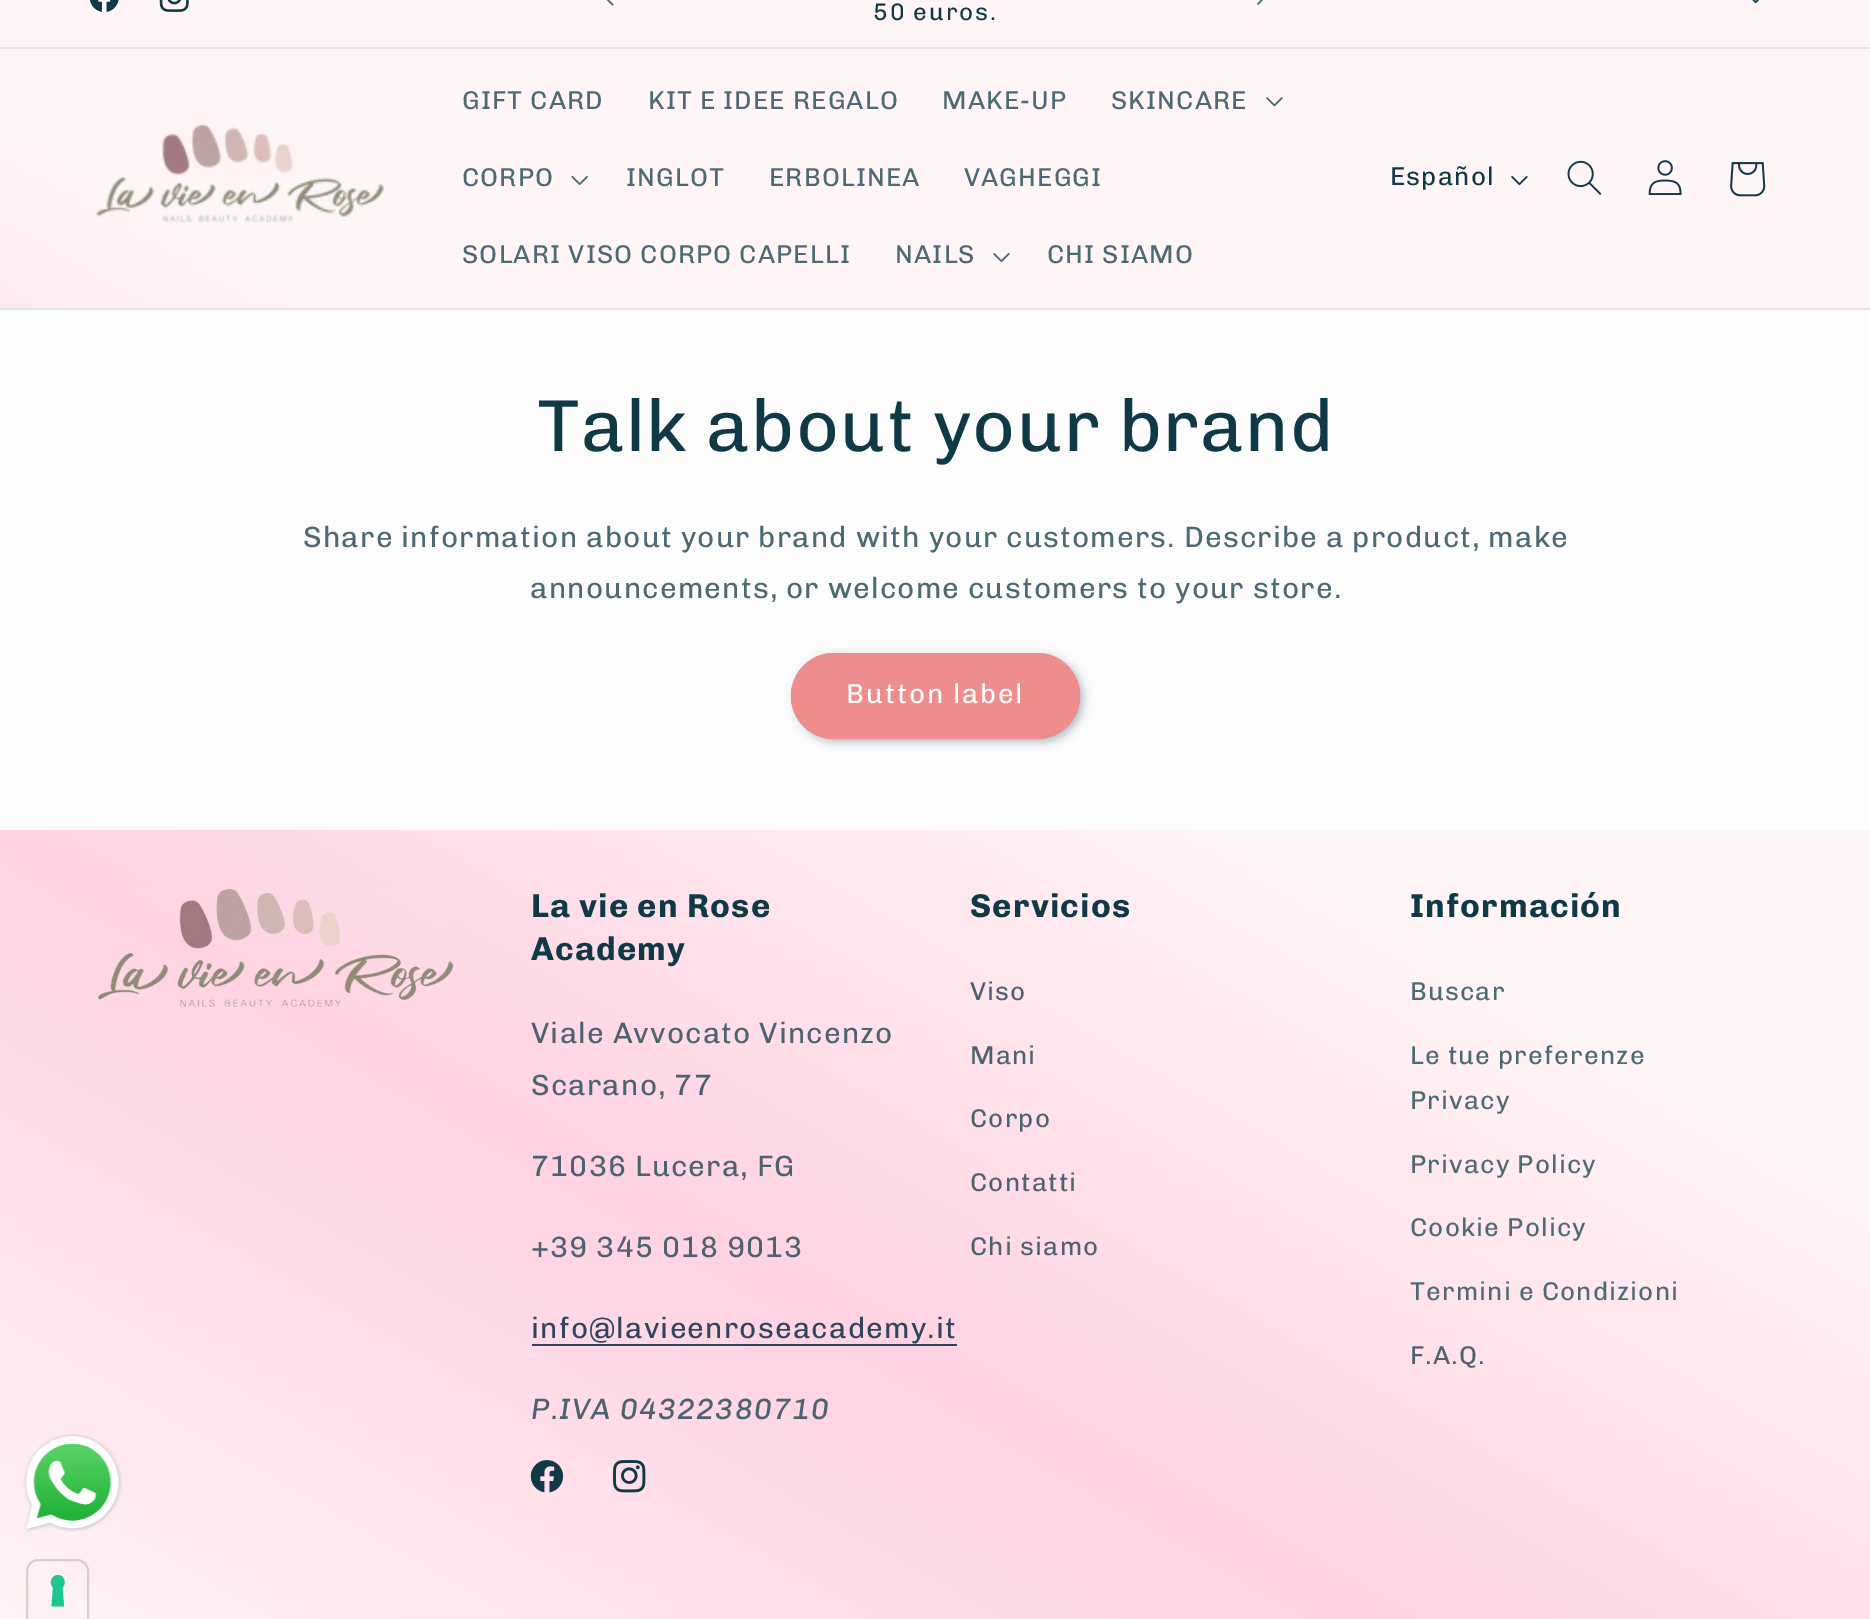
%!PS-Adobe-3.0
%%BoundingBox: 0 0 1870 1619
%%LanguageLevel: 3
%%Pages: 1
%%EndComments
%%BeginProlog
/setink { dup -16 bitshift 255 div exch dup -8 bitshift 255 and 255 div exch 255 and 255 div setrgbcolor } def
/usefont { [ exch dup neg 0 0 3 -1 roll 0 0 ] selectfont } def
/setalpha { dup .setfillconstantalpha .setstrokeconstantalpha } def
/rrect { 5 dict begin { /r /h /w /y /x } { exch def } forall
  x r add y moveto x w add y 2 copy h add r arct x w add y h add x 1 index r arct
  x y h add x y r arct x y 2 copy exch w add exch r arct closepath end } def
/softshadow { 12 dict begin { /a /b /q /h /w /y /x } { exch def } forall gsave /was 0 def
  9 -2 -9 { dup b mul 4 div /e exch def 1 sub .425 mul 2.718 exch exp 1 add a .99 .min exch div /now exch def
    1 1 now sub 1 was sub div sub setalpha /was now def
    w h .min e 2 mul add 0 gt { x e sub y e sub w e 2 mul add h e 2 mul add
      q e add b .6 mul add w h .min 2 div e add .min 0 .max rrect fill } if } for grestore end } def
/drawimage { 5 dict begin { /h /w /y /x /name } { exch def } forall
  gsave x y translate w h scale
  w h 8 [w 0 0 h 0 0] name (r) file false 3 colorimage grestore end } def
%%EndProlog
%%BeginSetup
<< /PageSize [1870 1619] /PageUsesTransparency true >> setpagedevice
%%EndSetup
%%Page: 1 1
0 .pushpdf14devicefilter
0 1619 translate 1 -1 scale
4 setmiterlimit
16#FCFCFC setink
0 0 1870 1619 rectfill
gsave 0 0 moveto 1870 0 lineto 1870 47 lineto 0 47 lineto closepath clip newpath
<< /ShadingType 2 /ColorSpace /DeviceRGB /Coords [1520 -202 351 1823] /Extend [true true] /Function << /FunctionType 3 /Domain [0 1] /Functions [<< /FunctionType 2 /Domain [0 1] /C0 [1 0.957 0.965] /C1 [1 0.957 0.965] /N 1 >> << /FunctionType 2 /Domain [0 1] /C0 [1 0.957 0.965] /C1 [1 0.827 0.886] /N 1 >> << /FunctionType 2 /Domain [0 1] /C0 [1 0.827 0.886] /C1 [1 0.957 0.965] /N 1 >>] /Bounds [0.45 0.71] /Encode [0 1 0 1 0 1] >> >> shfill grestore
16#ECE5E8 setink
0 47 1870 2 rectfill
(img1.raw) 90 0 29 12 drawimage
(img2.raw) 159 0 30 12 drawimage
(img3.raw) 1752 0 7 3 drawimage
(img4.raw) 606 0 8 6 drawimage
(img5.raw) 1257 0 6 5 drawimage
/Chivo-Regular 24 usefont
16#103948 setink
873 20 moveto 1.8 0 (50 euros.) ashow
gsave 0 49 moveto 1870 49 lineto 1870 308 lineto 0 308 lineto closepath clip newpath
<< /ShadingType 2 /ColorSpace /DeviceRGB /Coords [1520 -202 351 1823] /Extend [true true] /Function << /FunctionType 3 /Domain [0 1] /Functions [<< /FunctionType 2 /Domain [0 1] /C0 [1 0.957 0.965] /C1 [1 0.957 0.965] /N 1 >> << /FunctionType 2 /Domain [0 1] /C0 [1 0.957 0.965] /C1 [1 0.827 0.886] /N 1 >> << /FunctionType 2 /Domain [0 1] /C0 [1 0.827 0.886] /C1 [1 0.957 0.965] /N 1 >>] /Bounds [0.45 0.71] /Encode [0 1 0 1 0 1] >> >> shfill grestore
gsave 0 308 moveto 1870 308 lineto 1870 310 lineto 0 310 lineto closepath clip newpath
<< /ShadingType 2 /ColorSpace /DeviceRGB /Coords [1520 -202 351 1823] /Extend [true true] /Function << /FunctionType 3 /Domain [0 1] /Functions [<< /FunctionType 2 /Domain [0 1] /C0 [0.925 0.898 0.91] /C1 [0.925 0.898 0.91] /N 1 >> << /FunctionType 2 /Domain [0 1] /C0 [0.925 0.898 0.91] /C1 [0.925 0.78 0.839] /N 1 >> << /FunctionType 2 /Domain [0 1] /C0 [0.925 0.78 0.839] /C1 [0.925 0.898 0.91] /N 1 >>] /Bounds [0.45 0.71] /Encode [0 1 0 1 0 1] >> >> shfill grestore
(img6.raw) 96 123 288 100 drawimage
/Chivo-Regular 25.75 usefont
16#4B6A75 setink
462 109 moveto 1.1 0 (GIFT CARD) ashow
648 109 moveto 1.1 0 (KIT E IDEE REGALO) ashow
942 109 moveto 1.1 0 (MAKE-UP) ashow
1111 109 moveto 1.1 0 (SKINCARE) ashow
(img7.raw) 1266 97 17 10 drawimage
462 186 moveto 1.1 0 (CORPO) ashow
(img8.raw) 571 176 17 9 drawimage
626 186 moveto 1.1 0 (INGLOT) ashow
769 186 moveto 1.1 0 (ERBOLINEA) ashow
964 186 moveto 1.1 0 (VAGHEGGI) ashow
462 263 moveto 1.1 0 (SOLARI VISO CORPO CAPELLI) ashow
895 263 moveto 1.1 0 (NAILS) ashow
(img9.raw) 993 253 17 9 drawimage
1047 263 moveto 1.1 0 (CHI SIAMO) ashow
16#103948 setink
1390 185 moveto 1.1 0 (Español) ashow
(img10.raw) 1511 176 17 9 drawimage
(img11.raw) 1567 160 35 35 drawimage
(img12.raw) 1648 160 34 35 drawimage
(img13.raw) 1730 162 36 35 drawimage
/Chivo-Regular 73.5 usefont
537 451 moveto 1.1 0 (Talk about your brand) ashow
/Chivo-Regular 29.4 usefont
16#4B6A75 setink
303 547 moveto 1.1 0 (Share information about your brand with your customers. Describe a product, make) ashow
530 598 moveto 1.1 0 (announcements, or welcome customers to your store.) ashow
16#ED8D8D setink
791 653 289 86 43 rrect fill
gsave
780 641 moveto 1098 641 lineto 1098 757 lineto 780 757 lineto closepath 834 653 moveto 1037 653 lineto 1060.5 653 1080 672.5 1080 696 curveto 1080 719.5 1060.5 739 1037 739 curveto 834 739 lineto 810.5 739 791 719.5 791 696 curveto 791 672.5 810.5 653 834 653 curveto closepath eoclip newpath
16#869BA2 setink
795 656 288 86 43 4.5 0.65 softshadow
grestore
2 setlinewidth
792 654 287 84 42 rrect stroke
/Chivo-Regular 27.5 usefont
16#FEFEFE setink
846 703 moveto 1.8 0 (Button label) ashow
gsave 0 830 moveto 1870 830 lineto 1870 1619 lineto 0 1619 lineto closepath clip newpath
<< /ShadingType 2 /ColorSpace /DeviceRGB /Coords [1520 -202 351 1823] /Extend [true true] /Function << /FunctionType 3 /Domain [0 1] /Functions [<< /FunctionType 2 /Domain [0 1] /C0 [1 0.957 0.965] /C1 [1 0.957 0.965] /N 1 >> << /FunctionType 2 /Domain [0 1] /C0 [1 0.957 0.965] /C1 [1 0.827 0.886] /N 1 >> << /FunctionType 2 /Domain [0 1] /C0 [1 0.827 0.886] /C1 [1 0.957 0.965] /N 1 >>] /Bounds [0.45 0.71] /Encode [0 1 0 1 0 1] >> >> shfill grestore
gsave 532 1344 moveto 957 1344 lineto 957 1346 lineto 532 1346 lineto closepath clip newpath
<< /ShadingType 2 /ColorSpace /DeviceRGB /Coords [1520 -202 351 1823] /Extend [true true] /Function << /FunctionType 3 /Domain [0 1] /Functions [<< /FunctionType 2 /Domain [0 1] /C0 [0.169 0.29 0.376] /C1 [0.169 0.29 0.376] /N 1 >> << /FunctionType 2 /Domain [0 1] /C0 [0.169 0.29 0.376] /C1 [0.169 0.271 0.365] /N 1 >> << /FunctionType 2 /Domain [0 1] /C0 [0.169 0.271 0.365] /C1 [0.169 0.29 0.376] /N 1 >>] /Bounds [0.45 0.71] /Encode [0 1 0 1 0 1] >> >> shfill grestore
(img14.raw) 98 888 356 119 drawimage
/Chivo-Bold 33 usefont
16#103948 setink
531 917 moveto 1.1 0 (La vie en Rose) ashow
531 960 moveto 1.1 0 (Academy) ashow
/Chivo-Regular 29.4 usefont
16#4C6270 setink
531 1043 moveto 1.1 0 (Viale Avvocato Vincenzo) ashow
531 1095 moveto 1.1 0 (Scarano, 77) ashow
531 1176 moveto 1.1 0 (71036 Lucera, FG) ashow
531 1257 moveto 1.1 0 (+39 345 018 9013) ashow
16#2B465E setink
531 1338 moveto 1.1 0 (info@lavieenroseacademy.it) ashow
/Chivo-Italic 29.4 usefont
16#4C6270 setink
531 1419 moveto 1.1 0 (P.IVA 04322380710) ashow
(img15.raw) 530 1460 34 33 drawimage
(img16.raw) 613 1460 33 33 drawimage
/Chivo-Bold 33 usefont
16#103948 setink
970 917 moveto 1.1 0 (Servicios) ashow
/Chivo-Regular 25.75 usefont
16#4C6270 setink
970 1000 moveto 1.1 0 (Viso) ashow
970 1064 moveto 1.1 0 (Mani) ashow
970 1127 moveto 1.1 0 (Corpo) ashow
970 1191 moveto 1.1 0 (Contatti) ashow
970 1255 moveto 1.1 0 (Chi siamo) ashow
/Chivo-Bold 33 usefont
16#103948 setink
1410 917 moveto 1.1 0 (Información) ashow
/Chivo-Regular 25.75 usefont
16#4B6A75 setink
1410 1000 moveto 1.1 0 (Buscar) ashow
1410 1064 moveto 1.1 0 (Le tue preferenze) ashow
1410 1109 moveto 1.1 0 (Privacy) ashow
1410 1173 moveto 1.1 0 (Privacy Policy) ashow
1410 1236 moveto 1.1 0 (Cookie Policy) ashow
1410 1300 moveto 1.1 0 (Termini e Condizioni) ashow
16#4C6270 setink
1410 1364 moveto 1.1 0 (F.A.Q.) ashow
(img17.raw) 23 1433 100 100 drawimage
0.15 setalpha
16#000000 setink
38 1560 moveto 77 1560 lineto 83 1560 88 1565 88 1571 curveto 88 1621 lineto 27 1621 lineto 27 1571 lineto 27 1565 32 1560 38 1560 curveto closepath stroke
1 setalpha
16#1CC691 setink
58 1575 moveto 64 1575 67 1583 62.5 1587.5 curveto 64 1606.5 lineto 51.5 1606.5 lineto 53 1587.5 lineto 48.5 1583 51.5 1575 58 1575 curveto closepath eofill
.poppdf14devicefilter showpage
%%EOF
